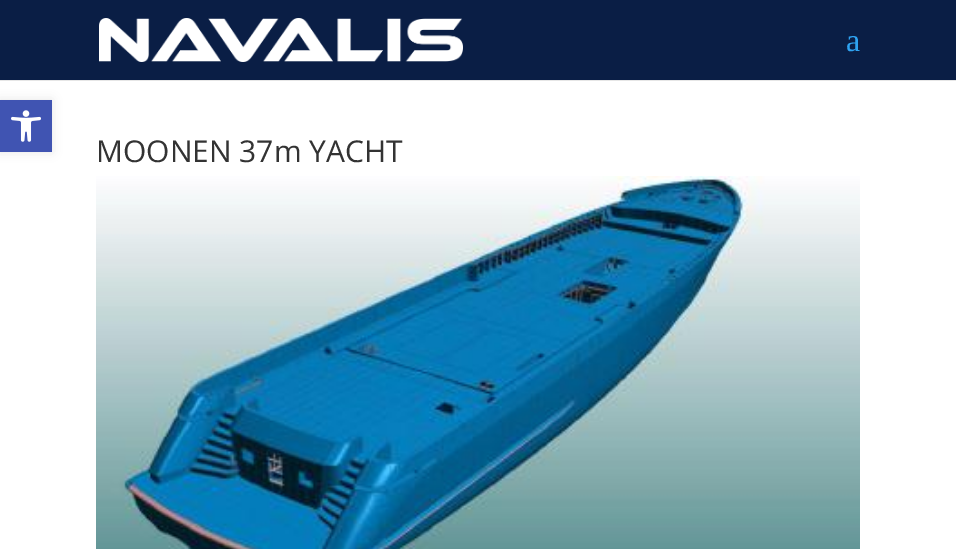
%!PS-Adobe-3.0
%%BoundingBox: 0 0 956 549
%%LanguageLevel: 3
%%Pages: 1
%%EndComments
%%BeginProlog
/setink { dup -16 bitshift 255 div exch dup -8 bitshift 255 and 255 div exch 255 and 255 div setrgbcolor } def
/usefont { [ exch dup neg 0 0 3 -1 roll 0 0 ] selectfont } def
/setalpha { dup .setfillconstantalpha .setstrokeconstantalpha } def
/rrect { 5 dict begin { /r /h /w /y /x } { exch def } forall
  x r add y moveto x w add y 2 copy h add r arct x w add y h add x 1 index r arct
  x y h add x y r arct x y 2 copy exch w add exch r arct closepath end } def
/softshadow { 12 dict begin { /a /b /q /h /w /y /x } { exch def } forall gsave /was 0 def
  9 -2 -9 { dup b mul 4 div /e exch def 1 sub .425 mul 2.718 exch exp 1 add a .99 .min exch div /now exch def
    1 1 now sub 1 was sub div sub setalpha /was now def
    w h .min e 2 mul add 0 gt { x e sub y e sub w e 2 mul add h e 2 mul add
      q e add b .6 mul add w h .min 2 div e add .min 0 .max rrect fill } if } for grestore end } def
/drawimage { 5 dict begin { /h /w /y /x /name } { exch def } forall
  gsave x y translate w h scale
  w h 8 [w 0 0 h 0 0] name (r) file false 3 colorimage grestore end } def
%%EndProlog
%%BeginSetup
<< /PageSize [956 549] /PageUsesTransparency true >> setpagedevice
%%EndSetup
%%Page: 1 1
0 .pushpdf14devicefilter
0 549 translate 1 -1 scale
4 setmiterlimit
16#FFFFFF setink
0 0 956 549 rectfill
16#000000 setink
0 100 52 52 0 5 0.1 softshadow
16#4054B2 setink
0 100 52 52 rectfill
(img1.raw) 11 110 30 32 drawimage
16#E6E6E6 setink
0 80 956 1 rectfill
16#0A1E45 setink
0 0 956 80 rectfill
(img2.raw) 99 18 364 44 drawimage
/LiberationSerif-Regular 32 usefont
16#2EA3F2 setink
846 51 moveto (a) show
/OpenSans-Regular 30 usefont
16#333333 setink
96 162 moveto (MOONEN 37m YACHT) show
(img3.raw) 96 176 764 373 drawimage
.poppdf14devicefilter showpage
%%EOF
